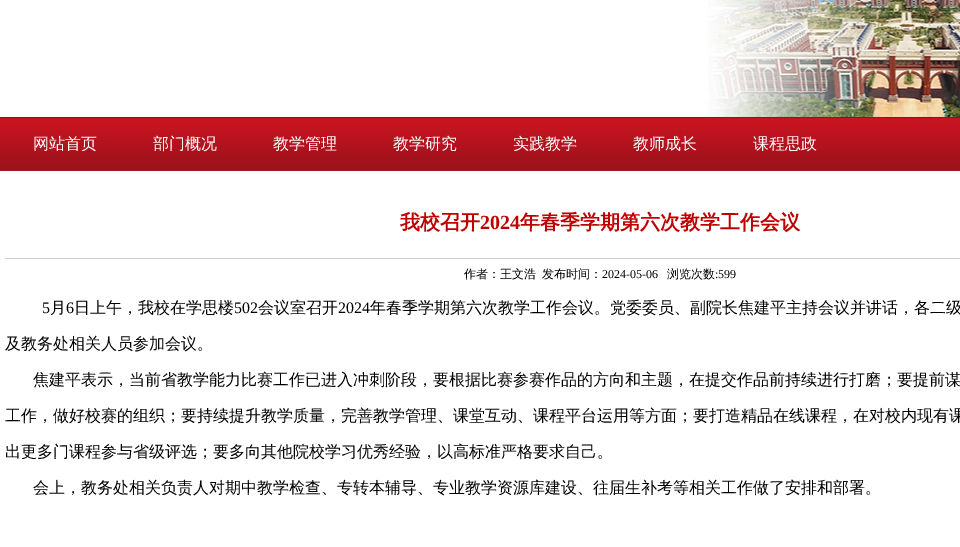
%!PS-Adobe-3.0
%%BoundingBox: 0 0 960 547
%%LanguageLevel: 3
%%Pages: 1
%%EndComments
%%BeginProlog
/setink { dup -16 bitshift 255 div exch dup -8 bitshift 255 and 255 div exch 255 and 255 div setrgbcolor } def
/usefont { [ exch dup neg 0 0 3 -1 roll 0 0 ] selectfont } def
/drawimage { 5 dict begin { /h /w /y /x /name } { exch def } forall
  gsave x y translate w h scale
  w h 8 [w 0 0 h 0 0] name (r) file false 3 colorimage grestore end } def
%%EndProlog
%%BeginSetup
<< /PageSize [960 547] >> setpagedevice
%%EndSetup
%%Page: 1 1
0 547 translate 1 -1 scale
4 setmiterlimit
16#FFFFFF setink
0 0 960 547 rectfill
(img1.raw) 708 0 252 117 drawimage
(img2.raw) 0 117 960 54 drawimage
/WenQuanYiZenHei-Medium 16 usefont
[
    [(网站首页) 33 149]
    [(部门概况) 153 149]
    [(教学管理) 273 149]
    [(教学研究) 393 149]
    [(实践教学) 513 149]
    [(教师成长) 633 149]
    [(课程思政) 753 149]
] { aload pop moveto show } forall
/WenQuanYiZenHei-Bold 20 usefont
16#BF0000 setink
400 229 moveto (我校召开) show
/LiberationSerif-Bold 20 usefont
480 229 moveto (2024) show
/WenQuanYiZenHei-Bold 20 usefont
520 229 moveto (年春季学期第六次教学工作会议) show
16#CCCCCC setink
5 258 955 1 rectfill
/WenQuanYiZenHei-Medium 12 usefont
16#000000 setink
464 278 moveto (作者：王文浩) show
542 278 moveto (发布时间：) show
/LiberationSerif-Regular 12 usefont
602 278 moveto (2024-05-06) show
/WenQuanYiZenHei-Medium 12 usefont
667 278 moveto (浏览次数) show
/LiberationSerif-Regular 12 usefont
715 278 moveto (:599) show
/LiberationSerif-Regular 16 usefont
42 313 moveto (5) show
/WenQuanYiZenHei-Medium 16 usefont
50 313 moveto (月) show
/LiberationSerif-Regular 16 usefont
66 313 moveto (6) show
/WenQuanYiZenHei-Medium 16 usefont
74 313 moveto (日上午，我校在学思楼) show
/LiberationSerif-Regular 16 usefont
234 313 moveto (502) show
/WenQuanYiZenHei-Medium 16 usefont
258 313 moveto (会议室召开) show
/LiberationSerif-Regular 16 usefont
338 313 moveto (2024) show
/WenQuanYiZenHei-Medium 16 usefont
[
    [(年春季学期第六次教学工作会议。党委委员、副院长焦建平主持会议并讲话，各二级) 370 313]
    [(及教务处相关人员参加会议。) 5 349]
    [(焦建平表示，当前省教学能力比赛工作已进入冲刺阶段，要根据比赛参赛作品的方向和主题，在提交作品前持续进行打磨；要提前谋) 33 385]
    [(工作，做好校赛的组织；要持续提升教学质量，完善教学管理、课堂互动、课程平台运用等方面；要打造精品在线课程，在对校内现有课) 5 421]
    [(出更多门课程参与省级评选；要多向其他院校学习优秀经验，以高标准严格要求自己。) 5 457]
    [(会上，教务处相关负责人对期中教学检查、专转本辅导、专业教学资源库建设、往届生补考等相关工作做了安排和部署。) 33 493]
] { aload pop moveto show } forall
showpage
%%EOF
